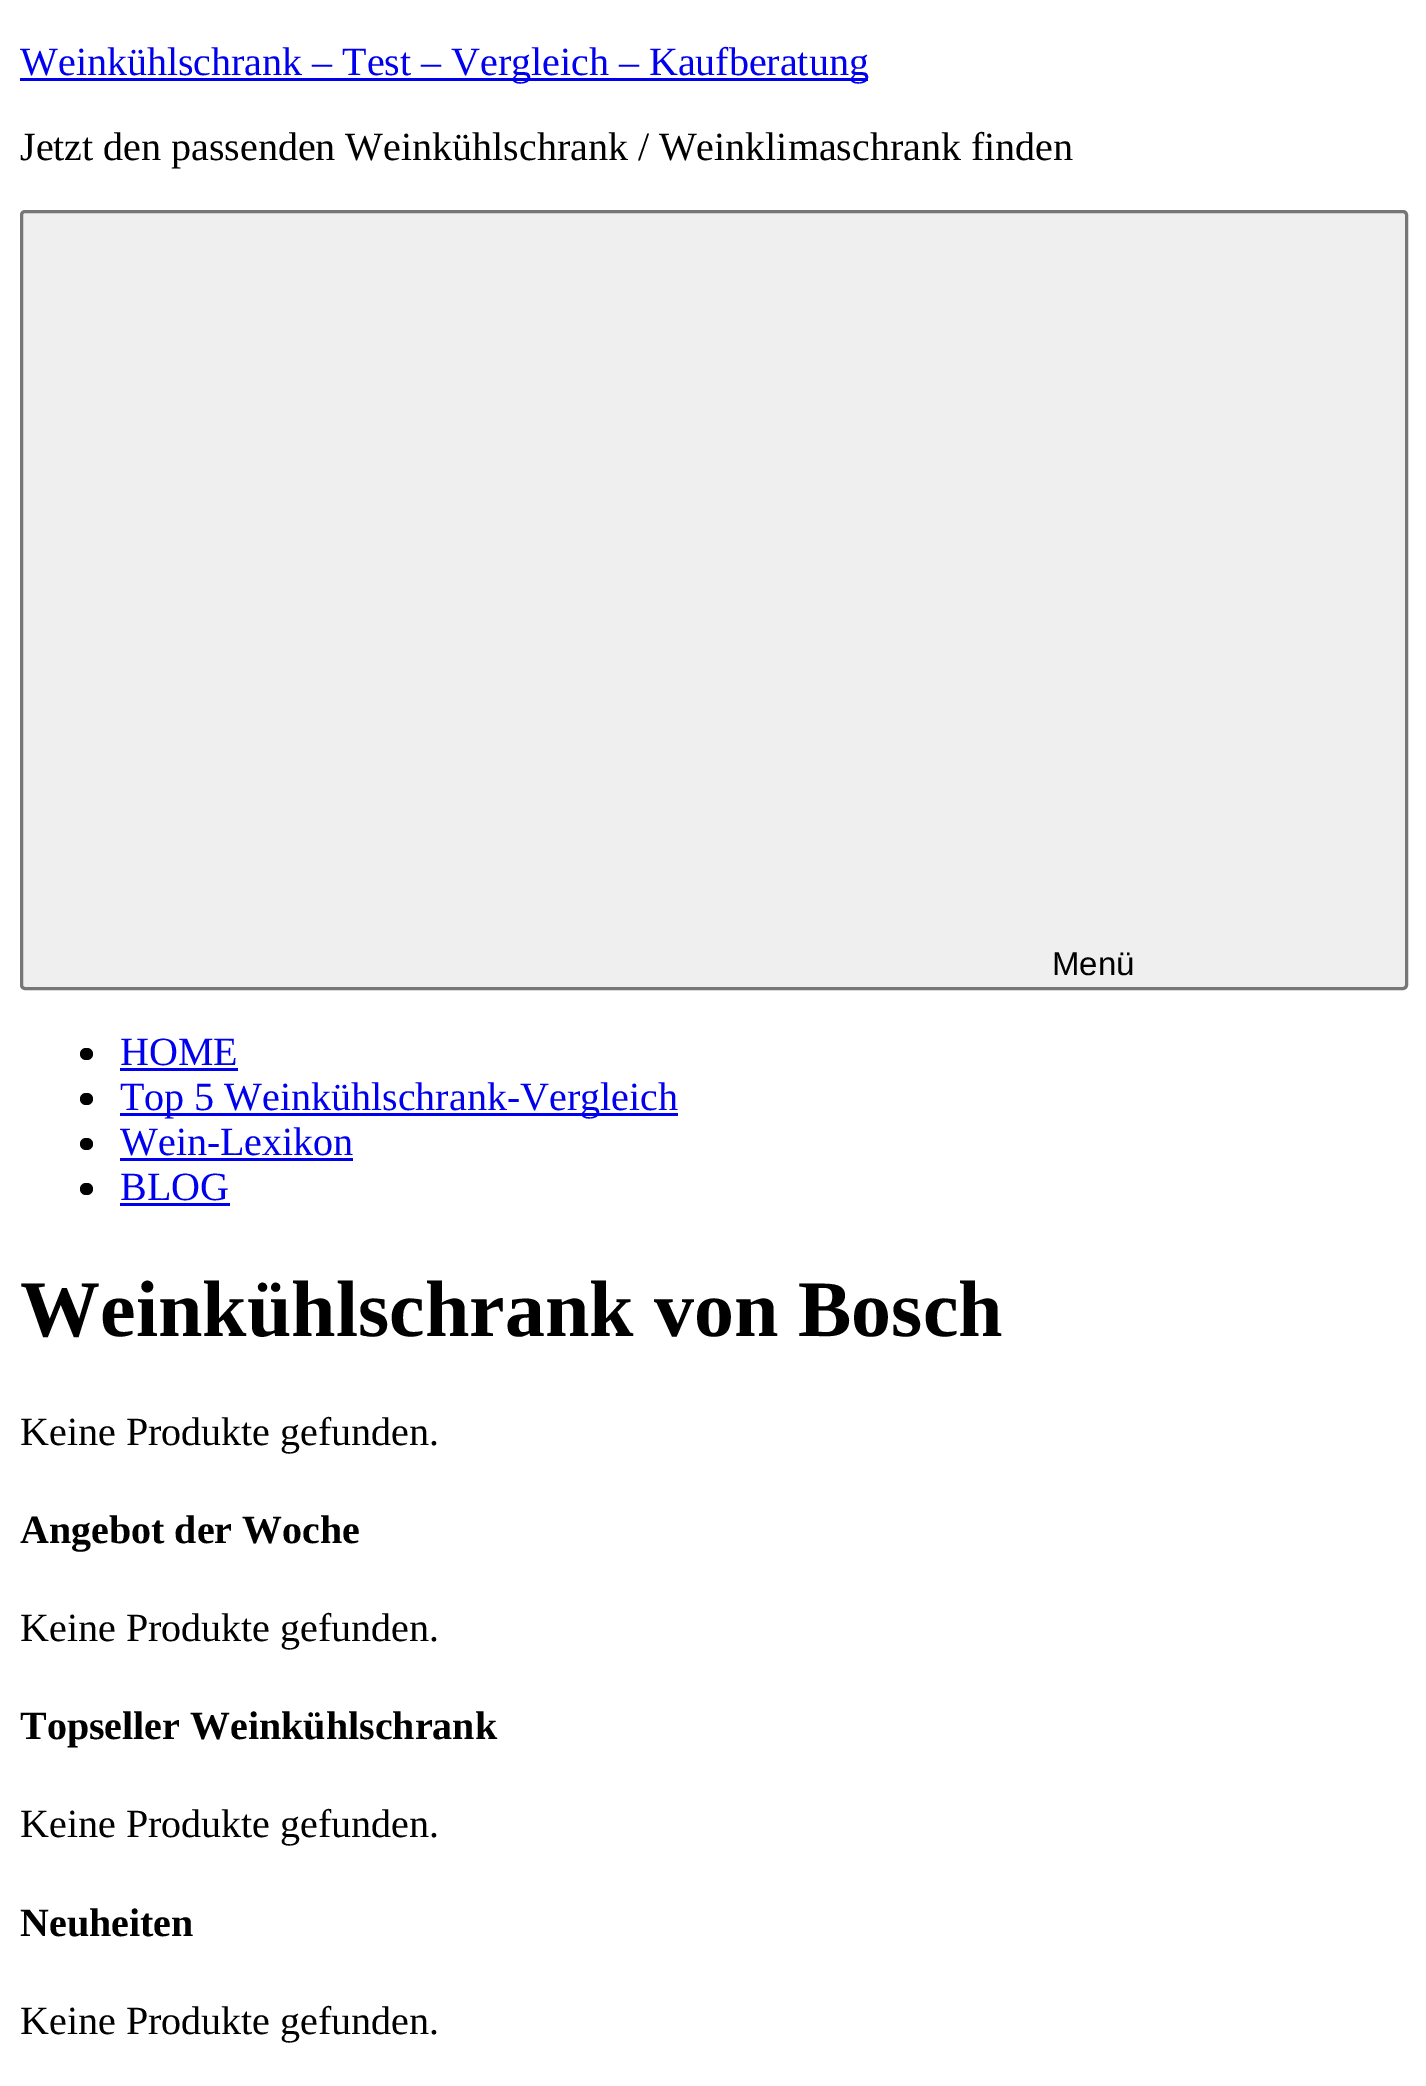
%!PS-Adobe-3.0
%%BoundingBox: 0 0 1426 2086
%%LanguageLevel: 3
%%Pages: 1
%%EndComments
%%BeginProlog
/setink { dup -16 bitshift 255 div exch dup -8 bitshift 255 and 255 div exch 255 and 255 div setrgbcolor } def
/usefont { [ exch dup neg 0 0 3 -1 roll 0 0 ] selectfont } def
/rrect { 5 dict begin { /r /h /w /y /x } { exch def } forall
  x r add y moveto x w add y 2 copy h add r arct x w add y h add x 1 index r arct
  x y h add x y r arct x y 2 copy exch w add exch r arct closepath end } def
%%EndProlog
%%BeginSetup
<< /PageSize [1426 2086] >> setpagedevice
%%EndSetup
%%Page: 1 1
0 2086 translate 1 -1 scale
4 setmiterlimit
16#FFFFFF setink
0 0 1426 2086 rectfill
16#0000EE setink
20 78 848 3 rectfill
/LiberationSerif-Regular 40 usefont
20 75 moveto (Weinkühlschrank – Test – Vergleich – Kaufberatung) show
16#000000 setink
20 160 moveto (Jetzt den passenden Weinkühlschrank / Weinklimaschrank finden) show
16#EFEFEF setink
21.5 211.5 1385 777 3.5 rrect gsave fill grestore
16#767676 setink
3 setlinewidth
stroke
/LiberationSans-Regular 33 usefont
16#000000 setink
1052 975 moveto (Menü) show
80 1048 13 12 6 rrect fill
/LiberationSerif-Regular 40 usefont
16#0000EE setink
120 1065 moveto (HOME) show
120 1068 118 3 rectfill
16#000000 setink
80 1093 13 12 6 rrect fill
16#0000EE setink
120 1113 558 3 rectfill
120 1110 moveto (Top 5 Weinkühlschrank-Vergleich) show
16#000000 setink
80 1138 13 12 6 rrect fill
16#0000EE setink
120 1155 moveto (Wein-Lexikon) show
120 1158 233 3 rectfill
16#000000 setink
80 1183 13 12 6 rrect fill
16#0000EE setink
120 1200 moveto (BLOG) show
120 1203 110 3 rectfill
/LiberationSerif-Bold 80 usefont
16#000000 setink
20 1336 moveto (Weinkühlschrank von Bosch) show
/LiberationSerif-Regular 40 usefont
20 1445 moveto (Keine Produkte gefunden.) show
/LiberationSerif-Bold 40 usefont
20 1543 moveto (Angebot der Woche) show
/LiberationSerif-Regular 40 usefont
20 1641 moveto (Keine Produkte gefunden.) show
/LiberationSerif-Bold 40 usefont
20 1739 moveto (Topseller Weinkühlschrank) show
/LiberationSerif-Regular 40 usefont
20 1837 moveto (Keine Produkte gefunden.) show
/LiberationSerif-Bold 40 usefont
20 1936 moveto (Neuheiten) show
/LiberationSerif-Regular 40 usefont
20 2034 moveto (Keine Produkte gefunden.) show
showpage
%%EOF
